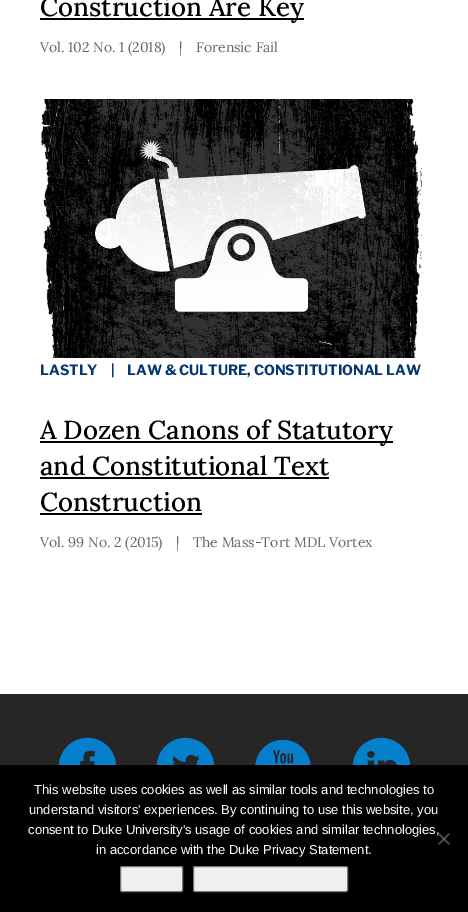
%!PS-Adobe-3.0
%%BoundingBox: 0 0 468 912
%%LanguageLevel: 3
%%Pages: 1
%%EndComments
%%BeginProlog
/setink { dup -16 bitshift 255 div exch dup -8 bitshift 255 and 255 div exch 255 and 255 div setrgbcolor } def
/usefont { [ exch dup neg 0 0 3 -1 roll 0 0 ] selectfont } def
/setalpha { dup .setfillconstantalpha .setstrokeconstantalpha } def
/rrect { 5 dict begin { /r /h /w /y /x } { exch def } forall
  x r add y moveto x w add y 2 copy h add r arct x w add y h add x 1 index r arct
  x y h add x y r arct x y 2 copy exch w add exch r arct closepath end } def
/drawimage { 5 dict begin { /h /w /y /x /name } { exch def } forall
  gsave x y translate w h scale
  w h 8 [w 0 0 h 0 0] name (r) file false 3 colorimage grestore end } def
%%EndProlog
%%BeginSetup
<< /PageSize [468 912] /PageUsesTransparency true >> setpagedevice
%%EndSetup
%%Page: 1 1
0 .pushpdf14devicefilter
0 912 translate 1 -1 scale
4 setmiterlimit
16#262626 setink
0 0 468 912 rectfill
16#FFFFFF setink
0 0 468 694 rectfill
16#000000 setink
40 18 264 2 rectfill
/Lora-Medium 26 usefont
40 16 moveto (Construction Are Key) show
/Lora-Regular 14 usefont
16#666666 setink
[
    [(Vol. 102 No. 1 \(2018\)) 40 52]
    [(|) 179 52]
    [(Forensic Fail) 196 52]
] { aload pop moveto show } forall
(img1.raw) 40 99 382 259 drawimage
/LibreFranklin-Bold 14 usefont
16#043573 setink
[
    [(LASTLY) 40 375]
    [(|) 111 375]
    [(LAW & CULTURE, CONSTITUTIONAL LAW) 127 375]
] { aload pop moveto show } forall
16#000000 setink
40 441 353 2 rectfill
/Lora-Medium 26 usefont
40 439 moveto (A Dozen Canons of Statutory) show
40 475 moveto (and Constitutional Text) show
40 477 289 2 rectfill
40 511 moveto (Construction) show
40 513 162 2 rectfill
/Lora-Regular 14 usefont
16#666666 setink
[
    [(Vol. 99 No. 2 \(2015\)) 40 547]
    [(|) 176 547]
    [(The Mass-Tort MDL Vortex) 193 547]
] { aload pop moveto show } forall
(img2.raw) 58 737 59 28 drawimage
(img3.raw) 156 737 59 28 drawimage
(img4.raw) 255 739 56 26 drawimage
(img5.raw) 352 737 59 28 drawimage
16#000000 setink
0 765 468 147 rectfill
/LiberationSans-Regular 13 usefont
16#FFFFFF setink
[
    [(This website uses cookies as well as similar tools and technologies to) 34 794]
    [(understand visitors' experiences. By continuing to use this website, you) 29 814]
    [(consent to Duke University's usage of cookies and similar technologies,) 28 834]
    [(in accordance with the Duke Privacy Statement.) 96 854]
] { aload pop moveto show } forall
16#404040 setink
448.5 833 moveto 450 834.5 lineto 439.5 845 lineto 438 843.5 lineto closepath fill
0.5 setalpha
16#808080 setink
438 834.5 moveto 439.5 833 lineto 450 843.5 lineto 448.5 845 lineto closepath fill
1 setalpha
16#EFEFEF setink
120.5 866.5 62 25 1.5 rrect gsave fill grestore
16#767676 setink
stroke
16#EFEFEF setink
193.5 866.5 154 25 1.5 rrect gsave fill grestore
16#767676 setink
stroke
.poppdf14devicefilter showpage
%%EOF
